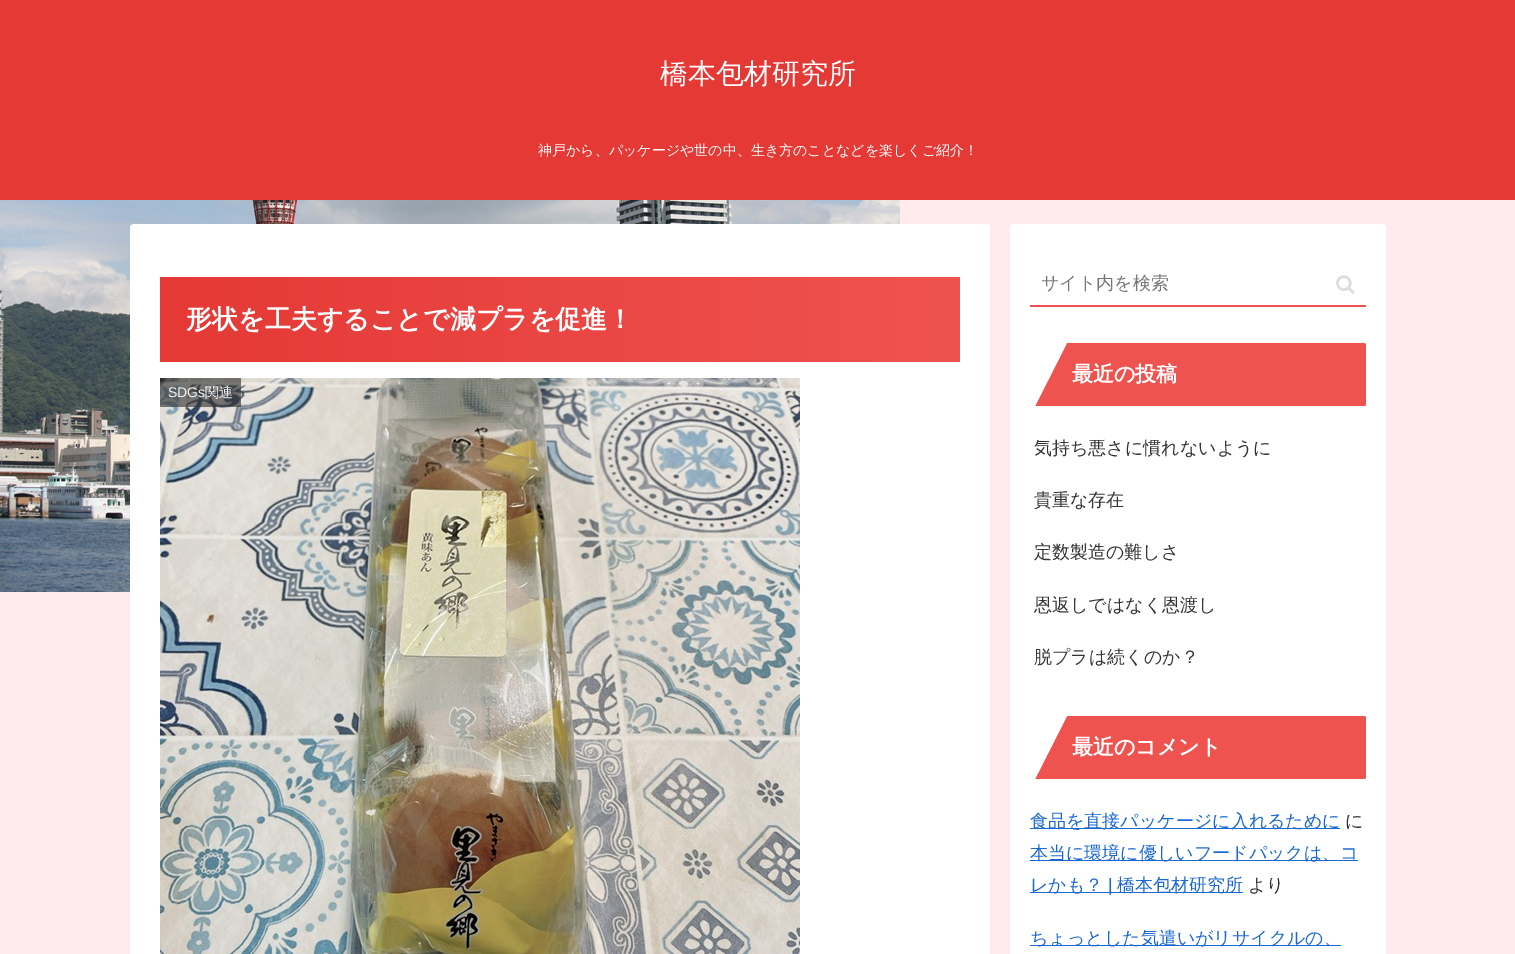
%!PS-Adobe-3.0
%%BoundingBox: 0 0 1515 954
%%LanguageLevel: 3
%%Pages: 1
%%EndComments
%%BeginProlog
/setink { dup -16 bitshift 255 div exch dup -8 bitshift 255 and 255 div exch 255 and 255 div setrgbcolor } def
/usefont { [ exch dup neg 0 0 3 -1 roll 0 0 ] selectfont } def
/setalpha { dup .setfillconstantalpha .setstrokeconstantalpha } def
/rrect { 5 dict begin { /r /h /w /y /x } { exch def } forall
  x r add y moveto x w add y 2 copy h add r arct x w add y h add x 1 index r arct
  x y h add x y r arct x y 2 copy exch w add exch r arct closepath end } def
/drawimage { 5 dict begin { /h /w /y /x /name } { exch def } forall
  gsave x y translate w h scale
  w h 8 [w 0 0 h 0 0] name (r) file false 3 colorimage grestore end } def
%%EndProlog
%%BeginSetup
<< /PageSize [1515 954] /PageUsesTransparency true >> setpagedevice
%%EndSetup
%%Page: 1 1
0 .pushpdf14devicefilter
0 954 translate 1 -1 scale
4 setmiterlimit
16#FFEBEE setink
0 0 1515 954 rectfill
(img1.raw) 0 200 900 392 drawimage
16#E53935 setink
0 0 1515 200 rectfill
/WenQuanYiZenHei-Medium 28 usefont
16#FFFFFF setink
660 83 moveto (橋本包材研究所) show
/WenQuanYiZenHei-Medium 14 usefont
538 155 moveto (神戸から、パッケージや世の中、生き方のことなどを楽しくご紹介！) show
130 224 860 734 4 rrect fill
gsave 160 277 moveto 960 277 lineto 960 362 lineto 160 362 lineto closepath clip newpath
<< /ShadingType 2 /ColorSpace /DeviceRGB /Coords [160 320 960 320] /Extend [true true] /Function << /FunctionType 2 /Domain [0 1] /C0 [0.898 0.224 0.208] /C1 [0.937 0.325 0.314] /N 1 >> >> shfill grestore
/WenQuanYiZenHei-Bold 26 usefont
186 328 moveto (形状を工夫することで減プラを促進！) show
(img2.raw) 160 378 640 576 drawimage
0.63 setalpha
16#333333 setink
160 378 81 29 rectfill
/LiberationSans-Regular 14 usefont
1 setalpha
16#EFF0F0 setink
168 397 moveto (SDGs) show
/WenQuanYiZenHei-Medium 14 usefont
205 397 moveto (関連) show
16#FFFFFF setink
1010 224 376 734 4 rrect fill
16#EF5350 setink
1030 305 336 2 rectfill
/WenQuanYiZenHei-Medium 18 usefont
16#757575 setink
1041 289 moveto (サイト内を検索) show
(img3.raw) 1336 275 19 19 drawimage
16#EF5350 setink
1030 343 336 63 2 rrect fill
16#FFFFFF setink
1028 420 moveto 1028 341 lineto 1068 341 lineto closepath fill
/WenQuanYiZenHei-Bold 21 usefont
1072 381 moveto (最近の投稿) show
/WenQuanYiZenHei-Medium 18 usefont
16#333333 setink
[
    [(気持ち悪さに慣れないように) 1034 454]
    [(貴重な存在) 1034 506]
    [(定数製造の難しさ) 1034 558]
    [(恩返しではなく恩渡し) 1034 611]
    [(脱プラは続くのか？) 1034 663]
] { aload pop moveto show } forall
16#EF5350 setink
1030 716 336 63 2 rrect fill
16#FFFFFF setink
1028 793 moveto 1028 714 lineto 1068 714 lineto closepath fill
/WenQuanYiZenHei-Bold 21 usefont
1072 754 moveto (最近のコメント) show
16#1967D2 setink
1030 828 310 1 rectfill
/WenQuanYiZenHei-Medium 18 usefont
1030 827 moveto (食品を直接パッケージに入れるために) show
16#333333 setink
1345 827 moveto (に) show
16#1967D2 setink
1030 860 328 1 rectfill
1030 859 moveto (本当に環境に優しいフードパックは、コ) show
1030 892 213 1 rectfill
1030 891 moveto (レかも？) show
/LiberationSans-Regular 18 usefont
1108 891 moveto (|) show
/WenQuanYiZenHei-Medium 18 usefont
1117 891 moveto (橋本包材研究所) show
16#333333 setink
1248 891 moveto (より) show
16#1967D2 setink
1030 945 311 1 rectfill
1030 944 moveto (ちょっとした気遣いがリサイクルの、) show
.poppdf14devicefilter showpage
%%EOF
